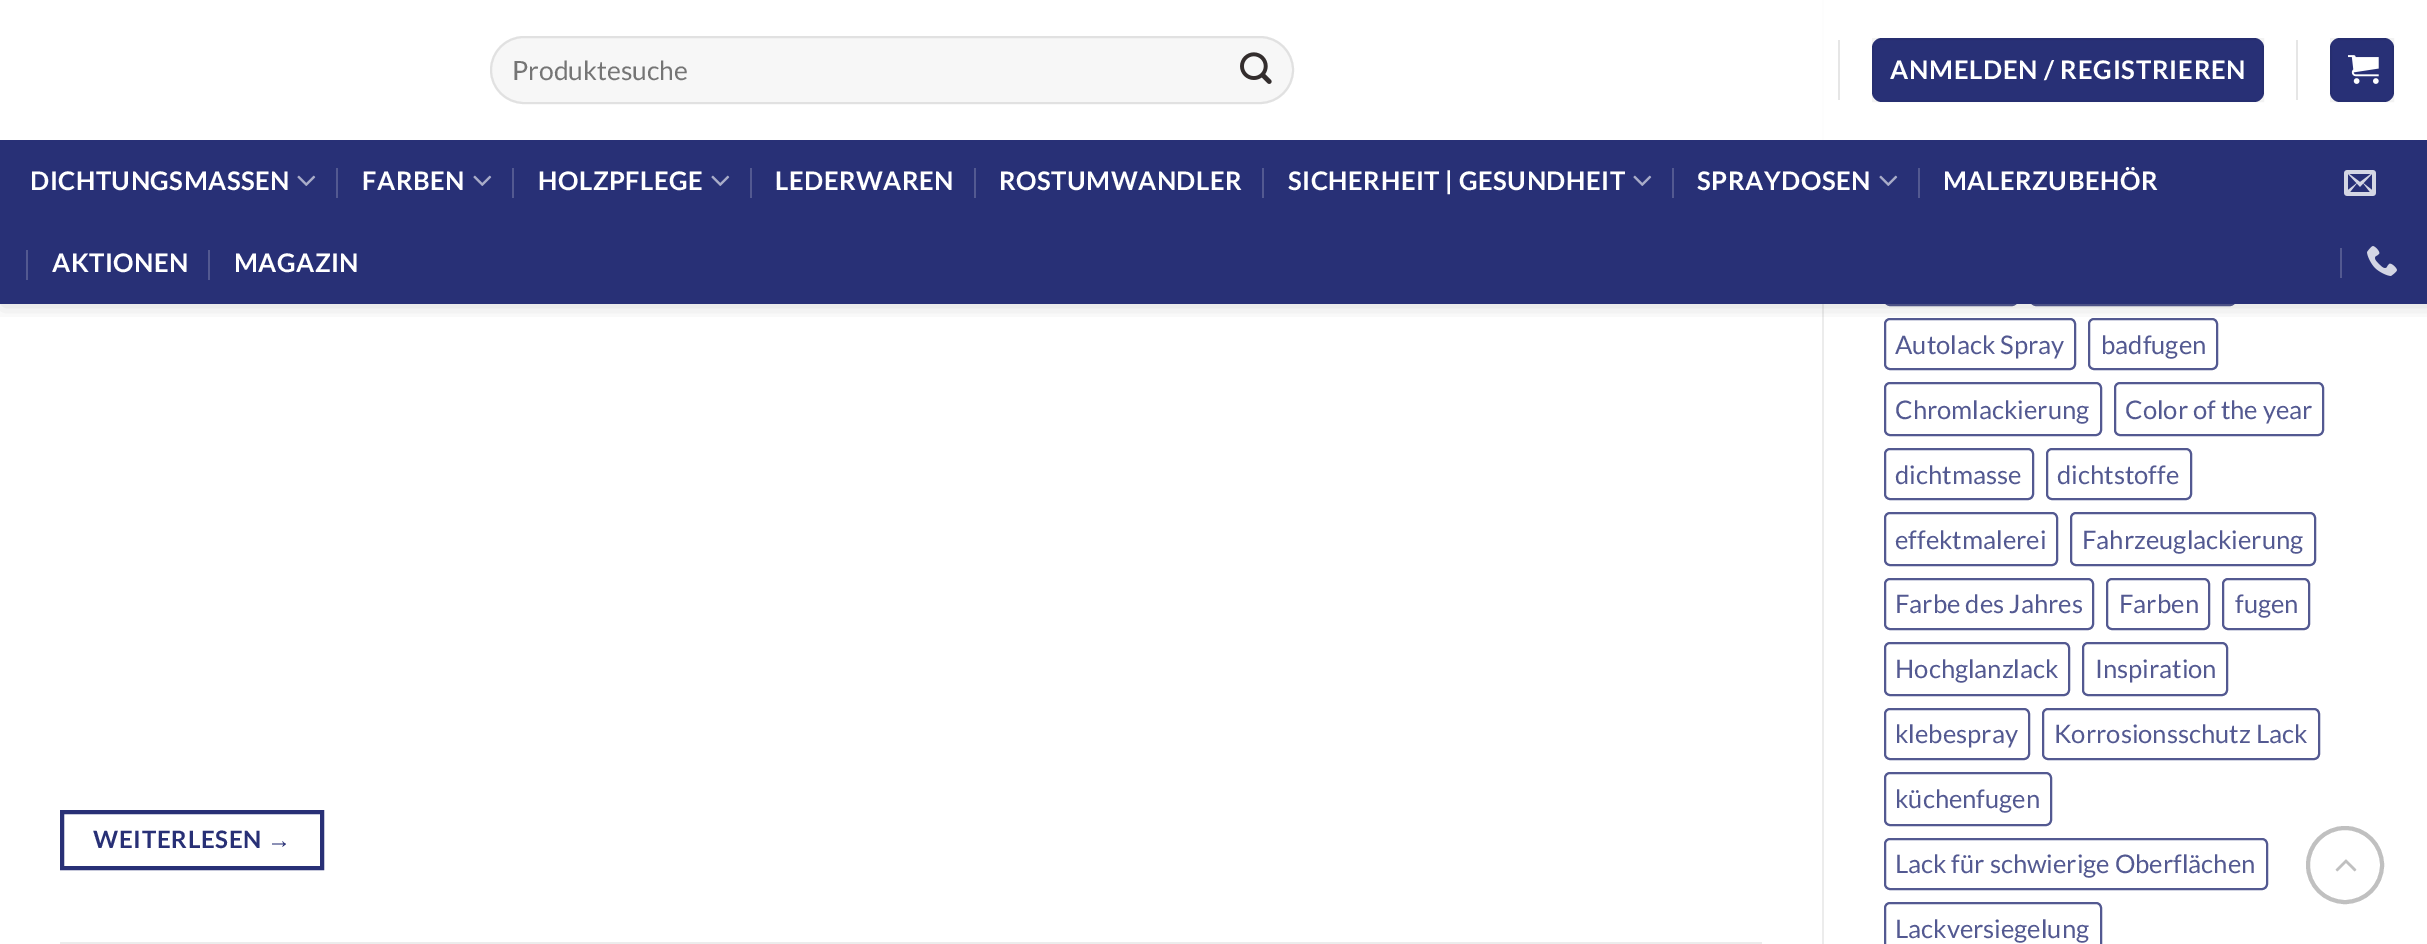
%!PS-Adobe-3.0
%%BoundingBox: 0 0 2427 944
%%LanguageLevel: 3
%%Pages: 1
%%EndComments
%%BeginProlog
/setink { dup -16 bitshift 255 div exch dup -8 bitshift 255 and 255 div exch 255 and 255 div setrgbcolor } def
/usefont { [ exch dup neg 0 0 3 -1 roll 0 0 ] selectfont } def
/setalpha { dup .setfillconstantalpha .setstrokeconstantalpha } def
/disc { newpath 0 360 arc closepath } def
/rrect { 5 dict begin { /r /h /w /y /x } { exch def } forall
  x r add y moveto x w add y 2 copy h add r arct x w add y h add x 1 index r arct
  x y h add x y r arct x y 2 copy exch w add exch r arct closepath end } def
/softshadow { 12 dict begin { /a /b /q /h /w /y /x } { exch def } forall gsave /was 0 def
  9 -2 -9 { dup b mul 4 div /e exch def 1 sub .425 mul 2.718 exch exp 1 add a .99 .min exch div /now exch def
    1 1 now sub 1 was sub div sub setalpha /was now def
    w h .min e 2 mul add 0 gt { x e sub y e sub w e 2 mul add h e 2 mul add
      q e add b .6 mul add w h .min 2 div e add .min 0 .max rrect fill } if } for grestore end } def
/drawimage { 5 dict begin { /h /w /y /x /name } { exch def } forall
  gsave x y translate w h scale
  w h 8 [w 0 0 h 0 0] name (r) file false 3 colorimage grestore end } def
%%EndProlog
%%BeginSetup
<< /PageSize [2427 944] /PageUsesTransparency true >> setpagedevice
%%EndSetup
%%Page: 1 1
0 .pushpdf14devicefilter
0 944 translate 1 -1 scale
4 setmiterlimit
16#FFFFFF setink
0 0 2427 944 rectfill
16#ECECEC setink
1822 0 2 944 rectfill
16#535991 setink
2 setlinewidth
1885 253 132 52 5 rrect stroke
2031 253 204 52 5 rrect stroke
1885 319 190 50 5 rrect stroke
2089 319 128 50 5 rrect stroke
gsave
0 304 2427 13 rectclip
16#000000 setink
2 2 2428 304 0 10 0.15 softshadow
grestore
0.9 setalpha
16#FFFFFF setink
1822 0 2 140 rectfill
1 setalpha
16#F7F7F7 setink
490 36 804 68 34 rrect fill
0.09 setalpha
16#000000 setink
491 37 802 66 33 rrect stroke
/Lato-Regular 26.5 usefont
1 setalpha
16#757575 setink
512 80 moveto (Produktesuche) show
(img1.raw) 1240 52 32 32 drawimage
16#E6E6E6 setink
1838 40 2 60 rectfill
16#283076 setink
1872 38 392 64 10 rrect fill
0.05 setalpha
16#000000 setink
1873 39 390 62 rectstroke
/Lato-Bold 25.6 usefont
1 setalpha
16#FFFFFF setink
1890 79 moveto 0.75 0 (ANMELDEN / REGISTRIEREN) ashow
16#E6E6E6 setink
2296 40 2 60 rectfill
16#283076 setink
2330 38 64 64 10 rrect fill
0.05 setalpha
16#000000 setink
2331 39 62 62 rectstroke
1 setalpha
(img2.raw) 2348 55 31 29 drawimage
16#283076 setink
0 140 2427 164 rectfill
16#FFFFFF setink
30 190 moveto 0.5 0 (DICHTUNGSMASSEN) ashow
(img3.raw) 297 175 19 11 drawimage
16#535991 setink
336 168 2 30 rectfill
16#FFFFFF setink
362 190 moveto 0.5 0 (FARBEN) ashow
(img3.raw) 473 175 19 11 drawimage
16#535991 setink
512 168 2 30 rectfill
16#FFFFFF setink
538 190 moveto 0.5 0 (HOLZPFLEGE) ashow
(img3.raw) 711 175 19 11 drawimage
16#535991 setink
750 168 2 30 rectfill
16#FFFFFF setink
775 190 moveto 0.5 0 (LEDERWAREN) ashow
16#535991 setink
974 168 2 30 rectfill
16#FFFFFF setink
999 190 moveto 0.5 0 (ROSTUMWANDLER) ashow
16#535991 setink
1262 168 2 30 rectfill
16#FFFFFF setink
1288 190 moveto 0.5 0 (SICHERHEIT | GESUNDHEIT) ashow
(img3.raw) 1633 175 19 11 drawimage
16#535991 setink
1672 168 2 30 rectfill
16#FFFFFF setink
1697 190 moveto 0.5 0 (SPRAYDOSEN) ashow
(img3.raw) 1879 175 19 11 drawimage
16#535991 setink
1918 168 2 30 rectfill
16#FFFFFF setink
1943 190 moveto 0.5 0 (MALERZUBEHÖR) ashow
16#535991 setink
26 250 2 30 rectfill
16#FFFFFF setink
52 272 moveto 0.5 0 (AKTIONEN) ashow
16#535991 setink
208 250 2 30 rectfill
16#FFFFFF setink
234 272 moveto 0.5 0 (MAGAZIN) ashow
(img4.raw) 2344 170 32 26 drawimage
16#535991 setink
2340 248 2 30 rectfill
(img5.raw) 2367 246 30 30 drawimage
16#283076 setink
4 setlinewidth
62 812 260 56 rectstroke
/Lato-Bold 24 usefont
93 848 moveto 0.75 0 (WEITERLESEN) ashow
/LiberationSans-Bold 24 usefont
267 848 moveto 0.75 0 (→) ashow
16#ECECEC setink
60 942 1702 2 rectfill
/Lato-Regular 25.6 usefont
16#535991 setink
1895 354 moveto (Autolack Spray) show
2101 354 moveto (badfugen) show
2 setlinewidth
1885 383 216 52 5 rrect stroke
1895 419 moveto (Chromlackierung) show
2115 383 208 52 5 rrect stroke
2125 419 moveto (Color of the year) show
1885 449 148 50 5 rrect stroke
1895 484 moveto (dichtmasse) show
2047 449 144 50 5 rrect stroke
2057 484 moveto (dichtstoffe) show
1885 513 172 52 5 rrect stroke
1895 549 moveto (effektmalerei) show
2071 513 244 52 5 rrect stroke
2082 549 moveto (Fahrzeuglackierung) show
1885 579 208 50 5 rrect stroke
1895 613 moveto (Farbe des Jahres) show
2107 579 102 50 5 rrect stroke
2119 613 moveto (Farben) show
2223 579 86 50 5 rrect stroke
2235 613 moveto (fugen) show
1885 643 184 52 5 rrect stroke
1895 678 moveto (Hochglanzlack) show
2083 643 144 52 5 rrect stroke
2095 678 moveto (Inspiration) show
1885 709 144 50 5 rrect stroke
1895 743 moveto (klebespray) show
2043 709 276 50 5 rrect stroke
2054 743 moveto (Korrosionsschutz Lack) show
1885 773 166 52 5 rrect stroke
1895 808 moveto (küchenfugen) show
1885 839 382 50 5 rrect stroke
1895 873 moveto (Lack für schwierige Oberflächen) show
1885 903 216 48 5 rrect stroke
1895 938 moveto (Lackversiegelung) show
16#C0C0C0 setink
4 setlinewidth
2345 865 37 disc stroke
(img6.raw) 2335 859 22 13 drawimage
.poppdf14devicefilter showpage
%%EOF
